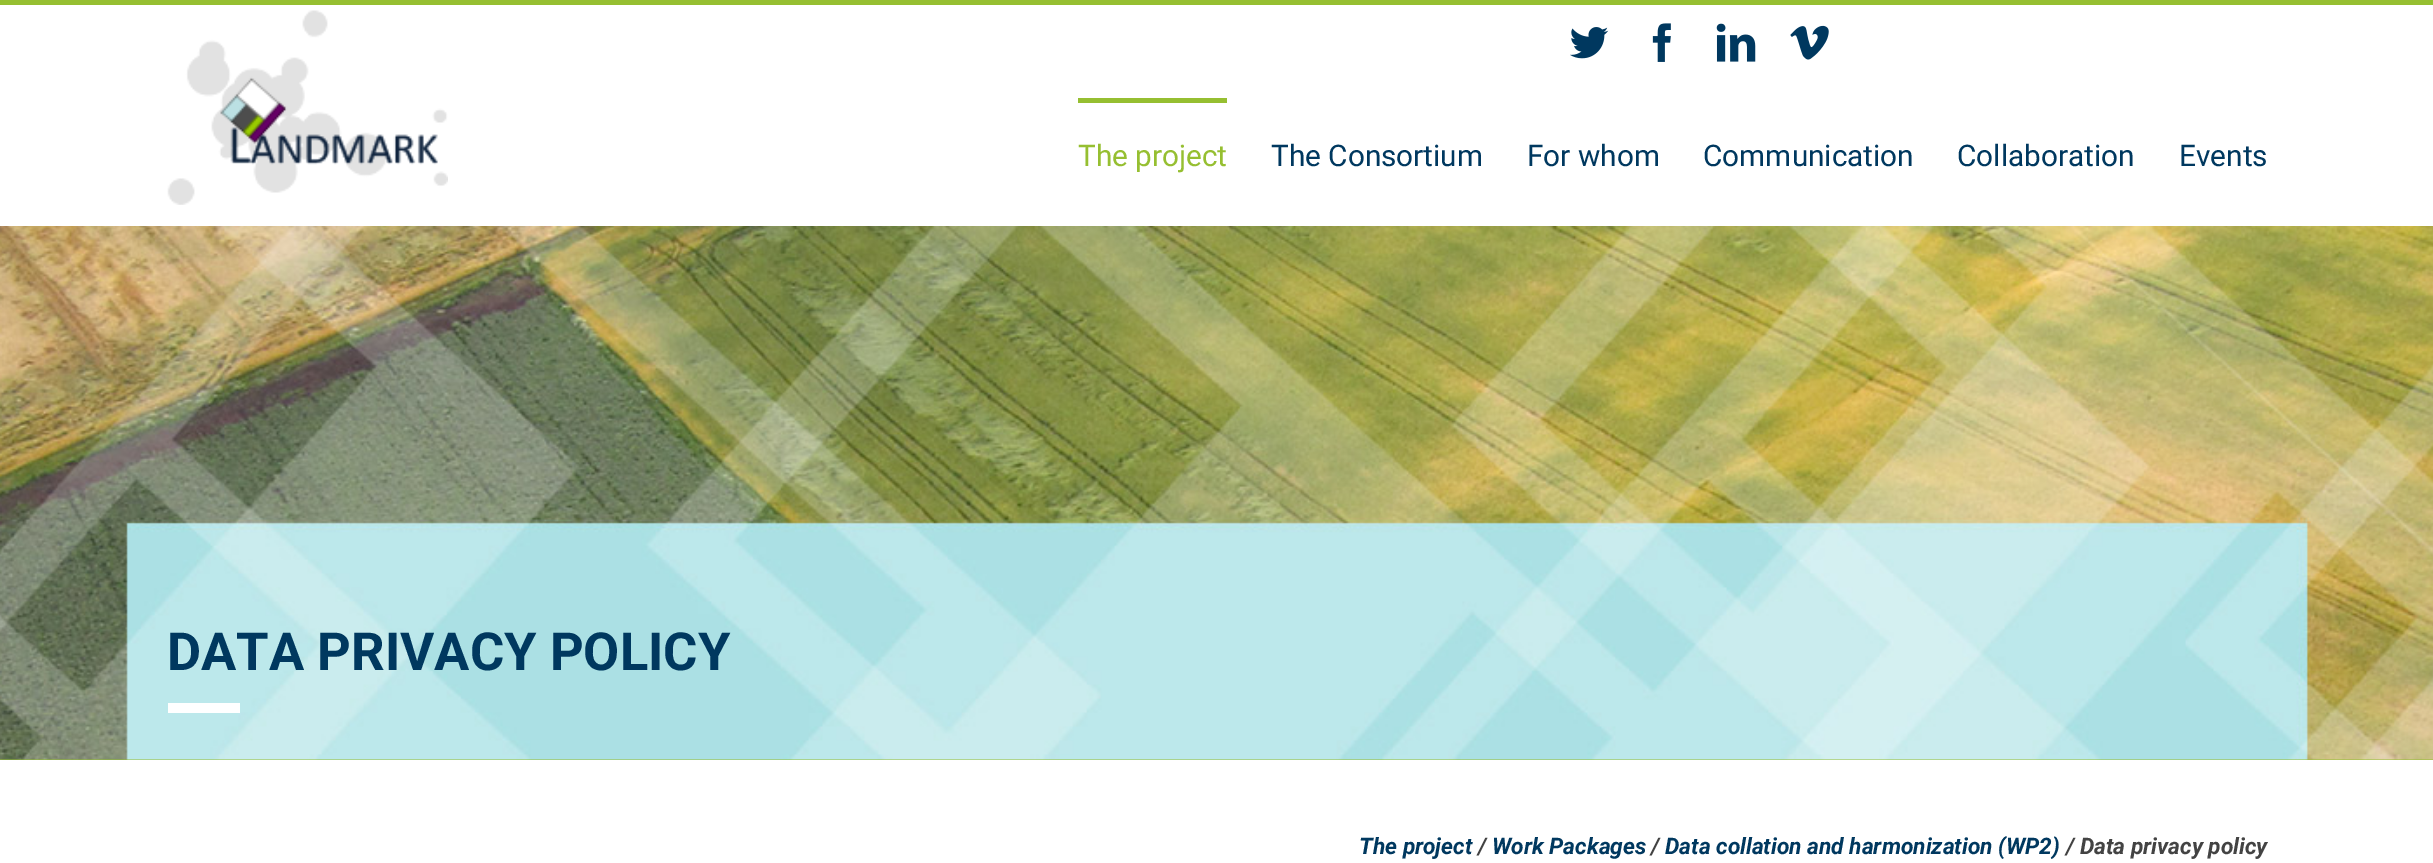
%!PS-Adobe-3.0
%%BoundingBox: 0 0 2433 863
%%LanguageLevel: 3
%%Pages: 1
%%EndComments
%%BeginProlog
/setink { dup -16 bitshift 255 div exch dup -8 bitshift 255 and 255 div exch 255 and 255 div setrgbcolor } def
/usefont { [ exch dup neg 0 0 3 -1 roll 0 0 ] selectfont } def
/drawimage { 5 dict begin { /h /w /y /x /name } { exch def } forall
  gsave x y translate w h scale
  w h 8 [w 0 0 h 0 0] name (r) file false 3 colorimage grestore end } def
%%EndProlog
%%BeginSetup
<< /PageSize [2433 863] >> setpagedevice
%%EndSetup
%%Page: 1 1
0 863 translate 1 -1 scale
4 setmiterlimit
16#FFFFFF setink
0 0 2433 863 rectfill
16#96BF31 setink
0 0 2433 5 rectfill
(img1.raw) 1570 27 39 32 drawimage
(img2.raw) 1652 23 19 39 drawimage
(img3.raw) 1716 23 40 39 drawimage
(img4.raw) 1790 25 39 35 drawimage
(img5.raw) 167 10 281 195 drawimage
1078 98 149 5 rectfill
/Roboto-Regular 29.75 usefont
1078 166 moveto (The project) show
16#00385F setink
[
    [(The Consortium) 1271 166]
    [(For whom) 1527 166]
    [(Communication) 1703 166]
    [(Collaboration) 1957 166]
    [(Events) 2179 166]
] { aload pop moveto show } forall
16#96BF31 setink
0 759 2433 1 rectfill
(img6.raw) 0 226 2433 534 drawimage
16#FFFFFF setink
168 703 72 10 rectfill
/Roboto-Bold 52.5 usefont
16#00385F setink
167 670 moveto (DATA PRIVACY POLICY) show
/Roboto-BoldItalic 22.75 usefont
1359 854 moveto (The project) show
16#434343 setink
1478 854 moveto (/) show
16#00385F setink
1492 854 moveto (Work Packages) show
16#434343 setink
1651 854 moveto (/) show
16#00385F setink
1665 854 moveto (Data collation and harmonization \(WP2\)) show
16#434343 setink
2066 854 moveto (/ Data privacy policy) show
showpage
%%EOF
